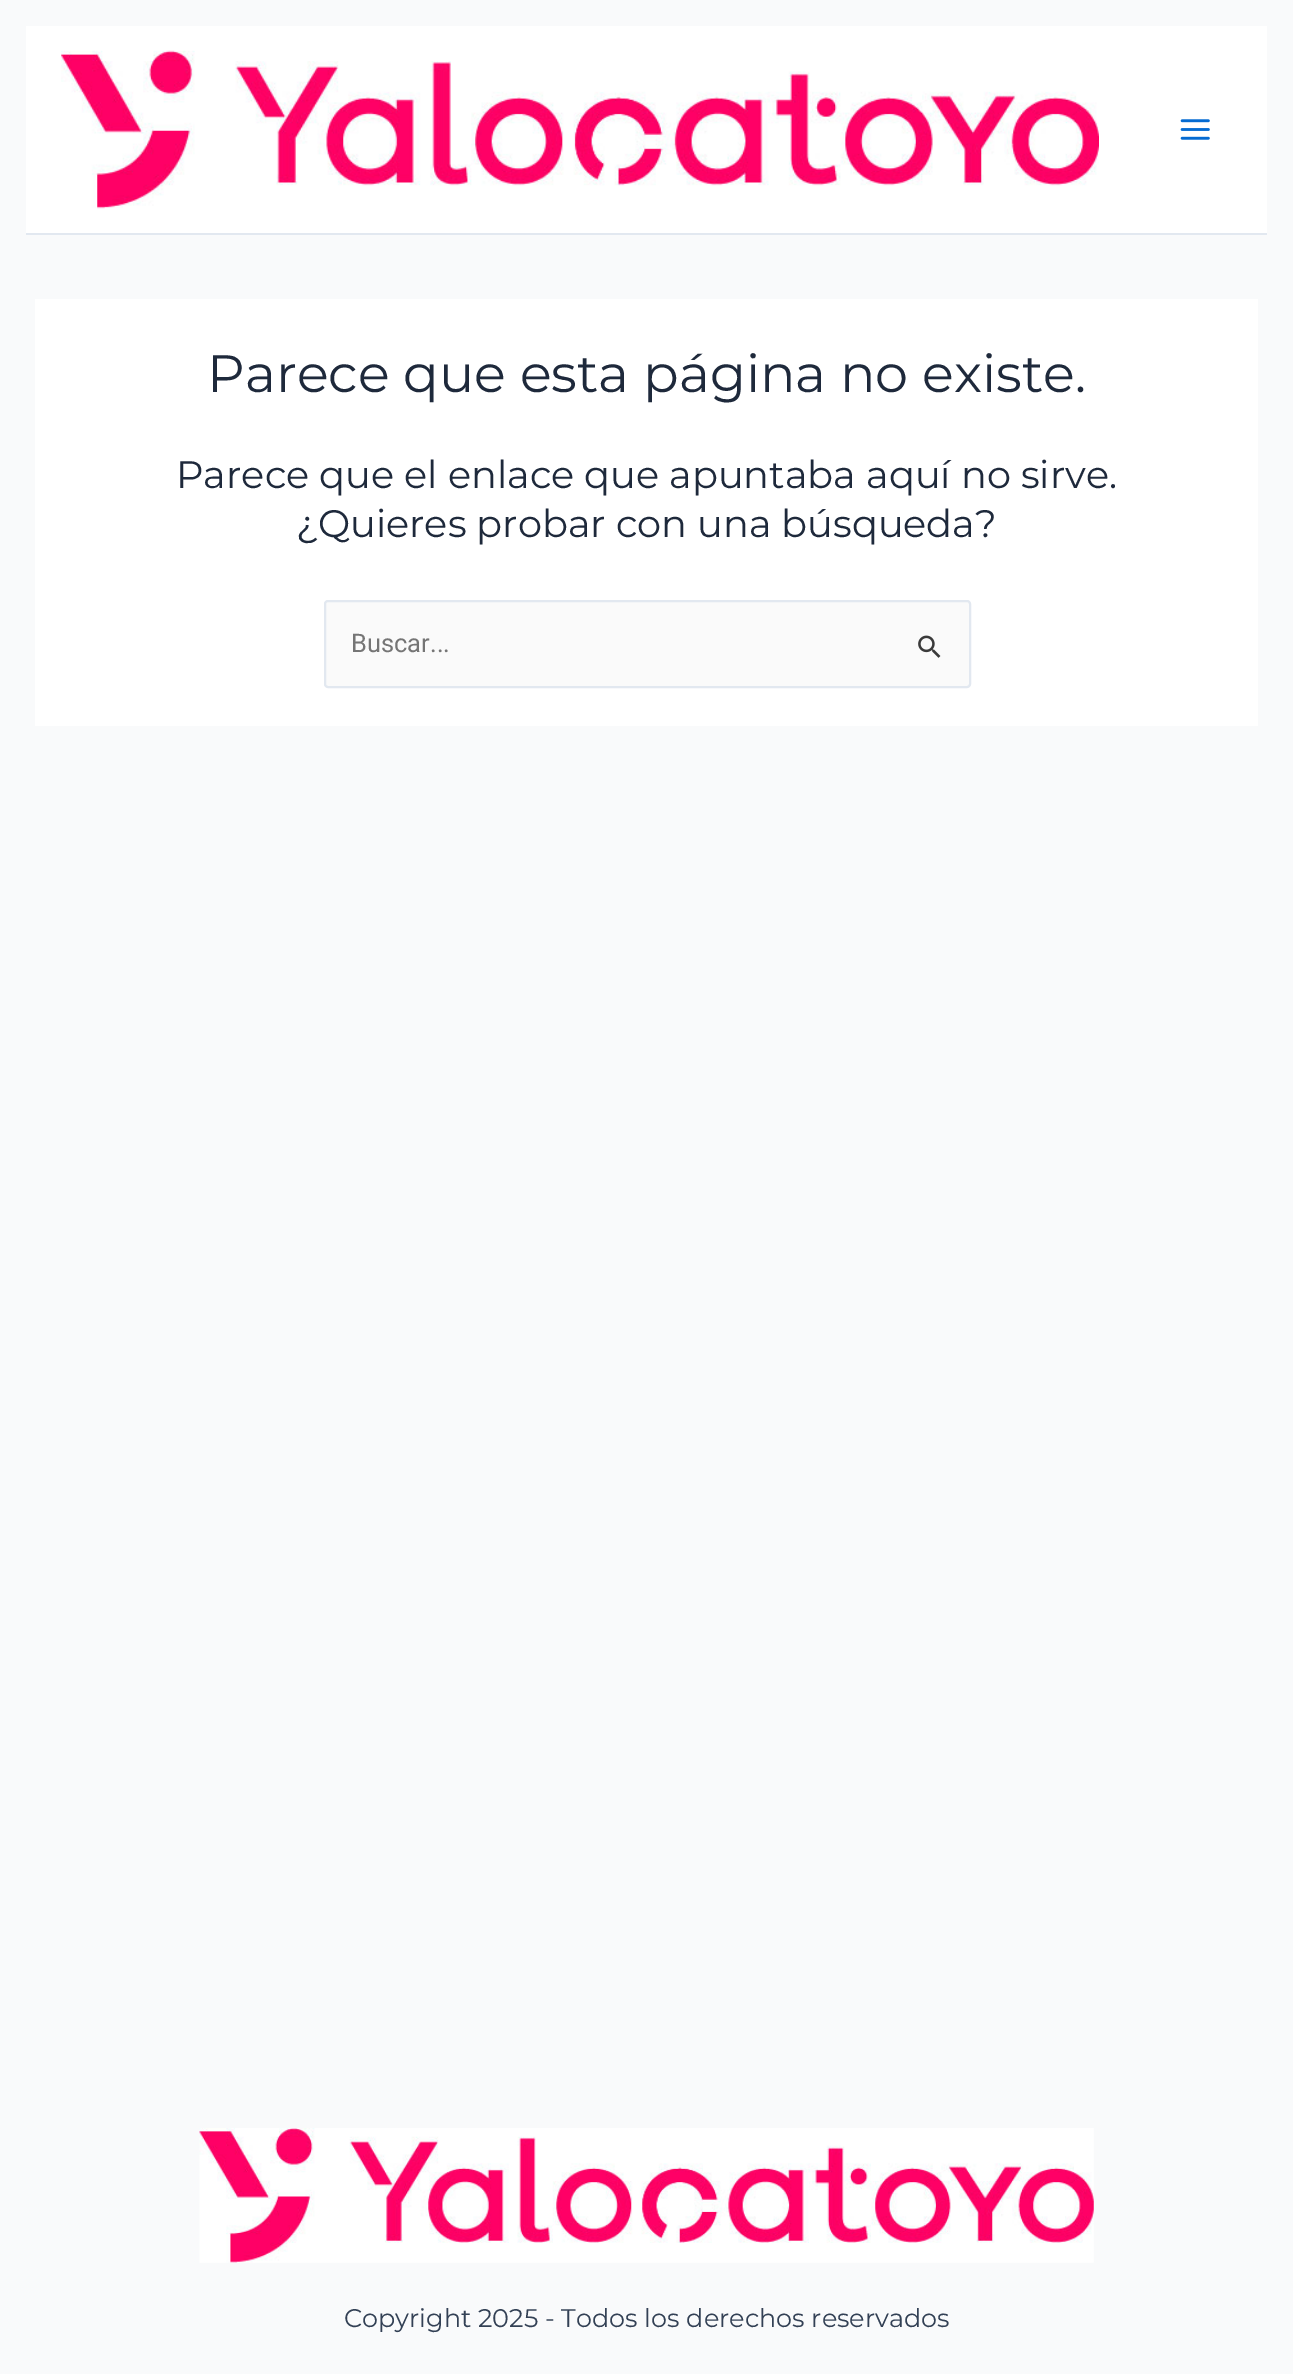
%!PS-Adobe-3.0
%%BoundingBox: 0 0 1293 2374
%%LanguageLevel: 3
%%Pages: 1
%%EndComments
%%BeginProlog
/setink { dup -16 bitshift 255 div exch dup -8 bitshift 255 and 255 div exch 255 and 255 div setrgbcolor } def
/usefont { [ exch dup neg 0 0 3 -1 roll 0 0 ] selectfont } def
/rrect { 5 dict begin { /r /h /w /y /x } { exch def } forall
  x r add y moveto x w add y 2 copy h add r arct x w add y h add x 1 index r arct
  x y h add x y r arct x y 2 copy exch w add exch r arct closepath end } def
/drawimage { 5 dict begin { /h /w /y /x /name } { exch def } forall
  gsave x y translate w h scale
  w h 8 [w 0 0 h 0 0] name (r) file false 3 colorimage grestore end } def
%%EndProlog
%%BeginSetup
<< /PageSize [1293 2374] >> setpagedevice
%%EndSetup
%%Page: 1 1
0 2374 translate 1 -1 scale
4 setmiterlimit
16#F9FAFB setink
0 0 1293 2374 rectfill
16#FFFFFF setink
26 26 1241 207 rectfill
16#E2E8F0 setink
26 233 1241 2 rectfill
(img1.raw) 61 50 1038 159 drawimage
(img2.raw) 1180 119 30 21 drawimage
16#FFFFFF setink
35 299 1223 427 rectfill
/Montserrat-Regular 52.5 usefont
16#1E293B setink
207 392 moveto (Parece que esta página no existe.) show
/Montserrat-Regular 38.3 usefont
176 488 moveto (Parece que el enlace que apuntaba aquí no sirve.) show
296 537 moveto (¿Quieres probar con una búsqueda?) show
16#FAFAFA setink
325 601 645 86 3 rrect gsave fill grestore
16#E2E8F0 setink
2 setlinewidth
stroke
/Roboto-Regular 25.5 usefont
16#757575 setink
351 652 moveto (Buscar...) show
(img3.raw) 918 635 23 23 drawimage
(img4.raw) 199 2128 895 135 drawimage
/Montserrat-Regular 25.5 usefont
16#334155 setink
344 2327 moveto (Copyright 2025 - Todos los derechos reservados) show
showpage
%%EOF
